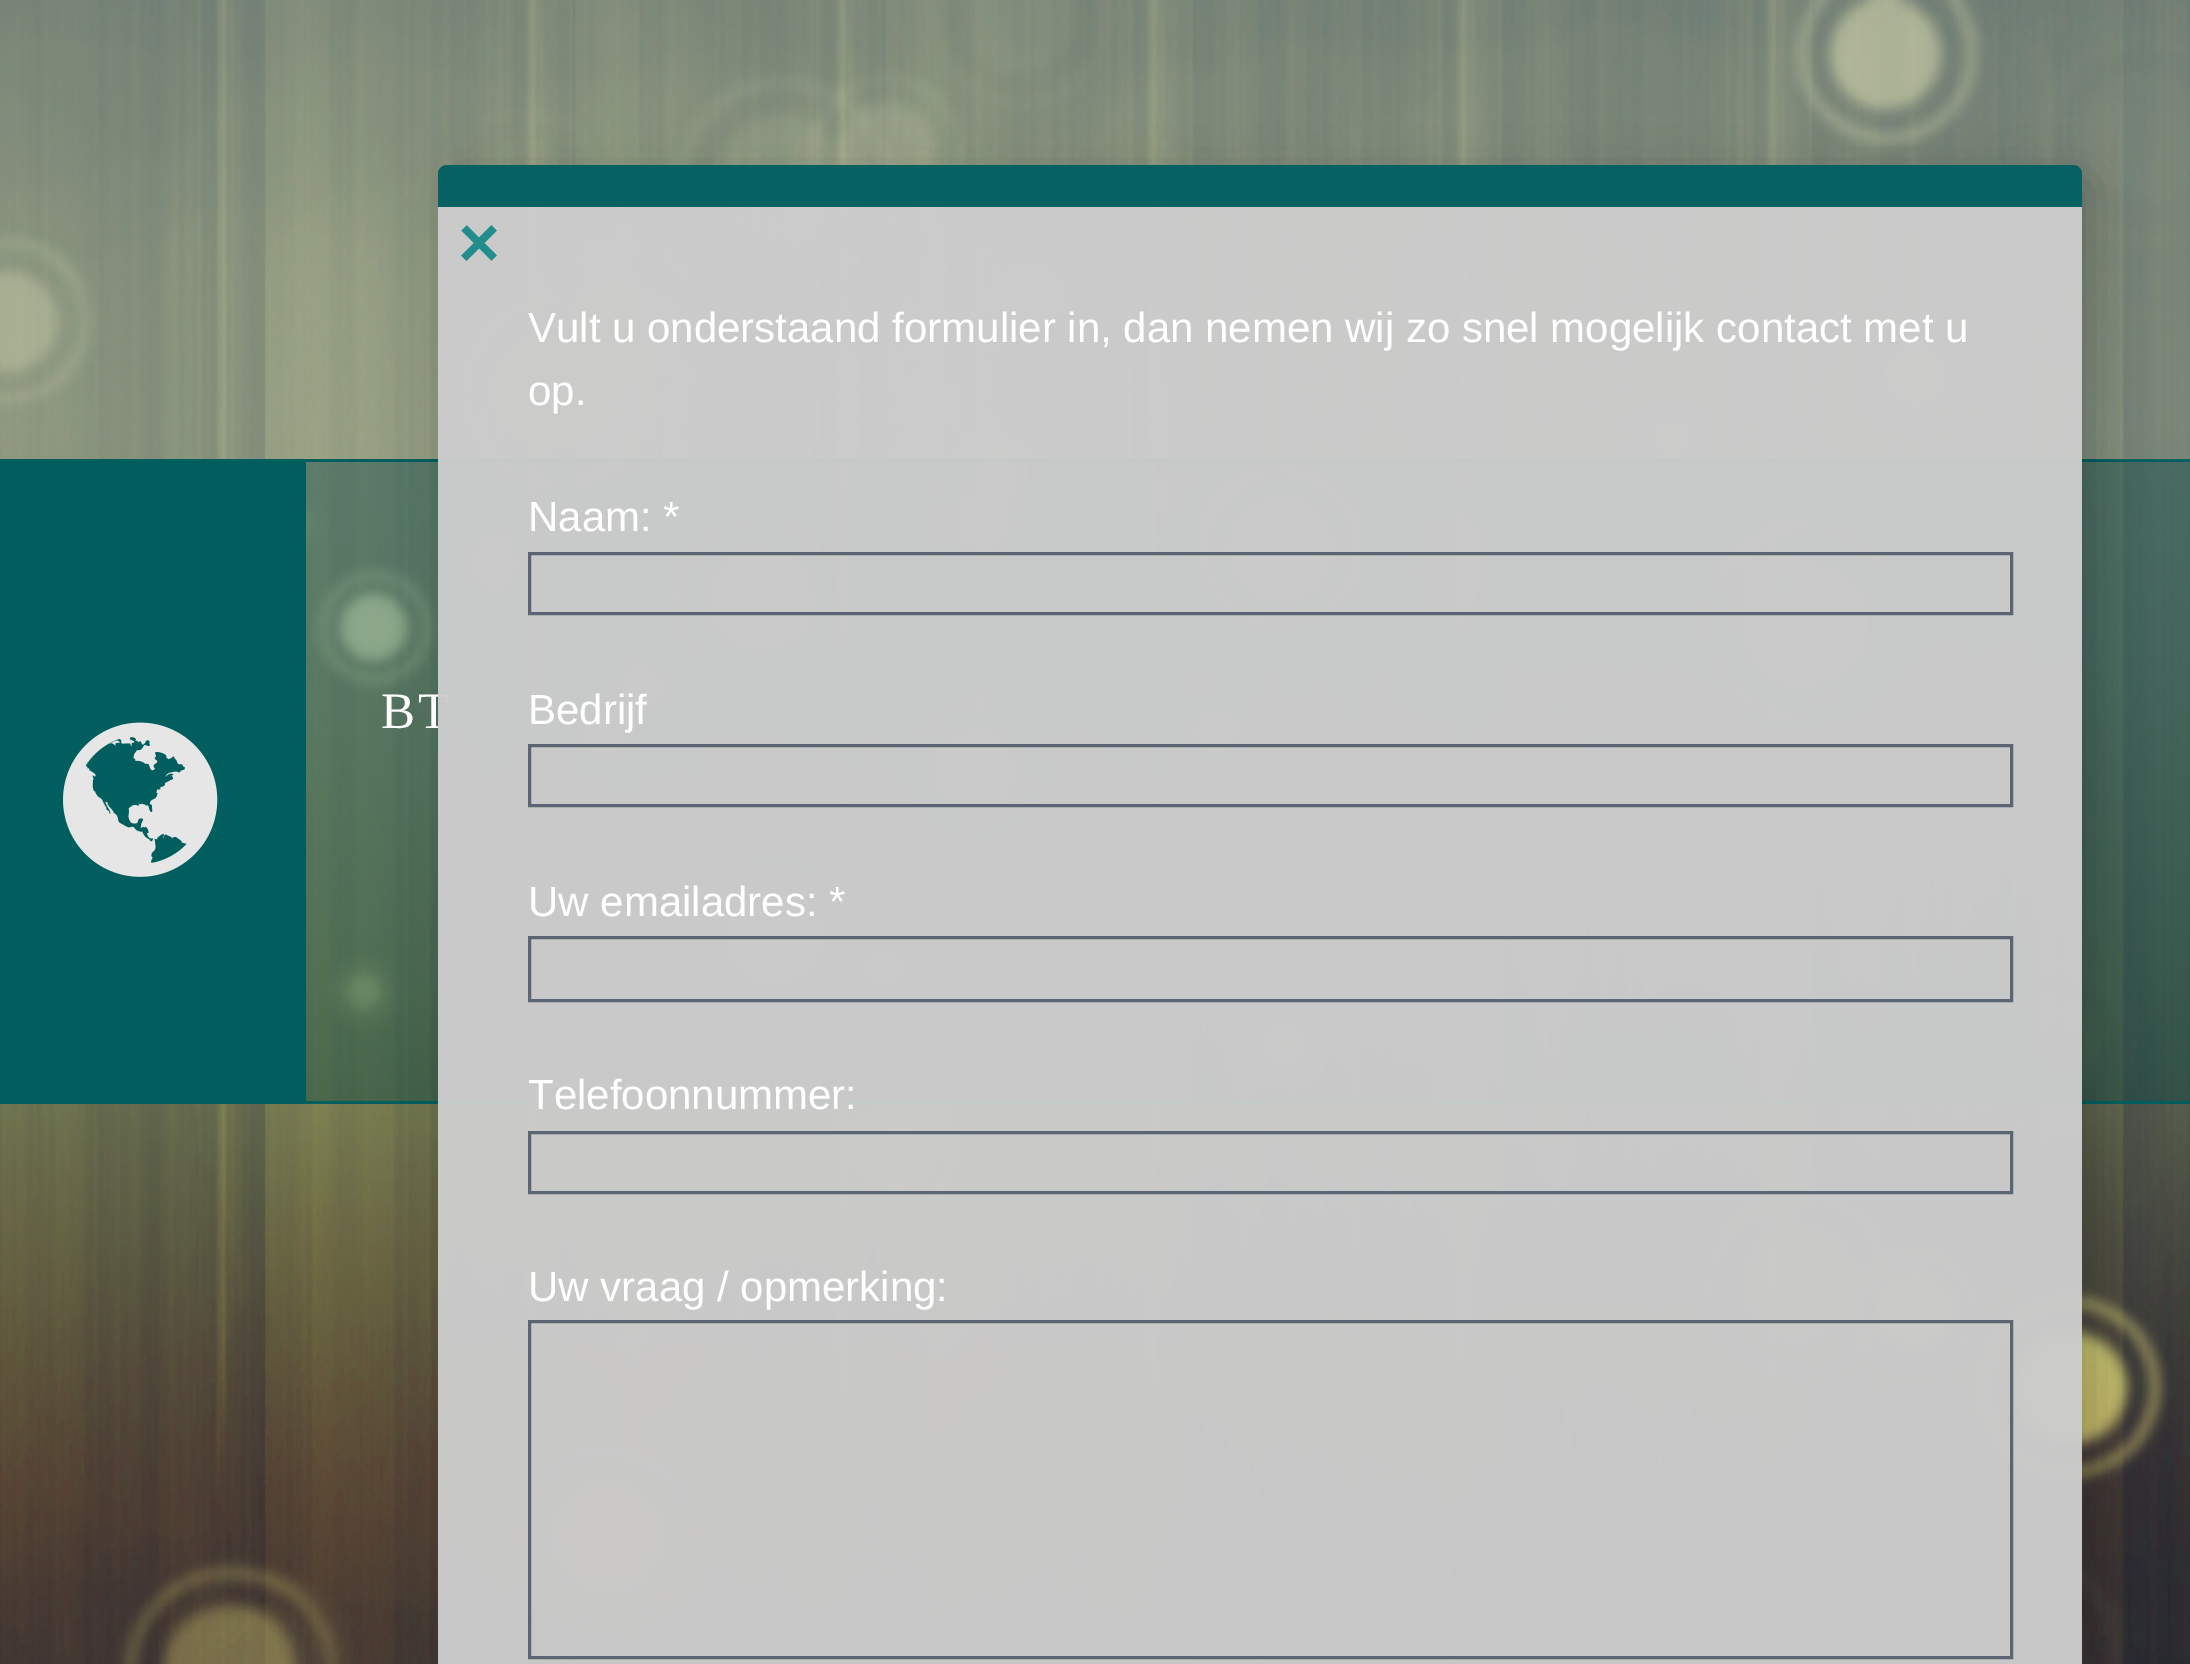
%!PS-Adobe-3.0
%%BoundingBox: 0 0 2190 1664
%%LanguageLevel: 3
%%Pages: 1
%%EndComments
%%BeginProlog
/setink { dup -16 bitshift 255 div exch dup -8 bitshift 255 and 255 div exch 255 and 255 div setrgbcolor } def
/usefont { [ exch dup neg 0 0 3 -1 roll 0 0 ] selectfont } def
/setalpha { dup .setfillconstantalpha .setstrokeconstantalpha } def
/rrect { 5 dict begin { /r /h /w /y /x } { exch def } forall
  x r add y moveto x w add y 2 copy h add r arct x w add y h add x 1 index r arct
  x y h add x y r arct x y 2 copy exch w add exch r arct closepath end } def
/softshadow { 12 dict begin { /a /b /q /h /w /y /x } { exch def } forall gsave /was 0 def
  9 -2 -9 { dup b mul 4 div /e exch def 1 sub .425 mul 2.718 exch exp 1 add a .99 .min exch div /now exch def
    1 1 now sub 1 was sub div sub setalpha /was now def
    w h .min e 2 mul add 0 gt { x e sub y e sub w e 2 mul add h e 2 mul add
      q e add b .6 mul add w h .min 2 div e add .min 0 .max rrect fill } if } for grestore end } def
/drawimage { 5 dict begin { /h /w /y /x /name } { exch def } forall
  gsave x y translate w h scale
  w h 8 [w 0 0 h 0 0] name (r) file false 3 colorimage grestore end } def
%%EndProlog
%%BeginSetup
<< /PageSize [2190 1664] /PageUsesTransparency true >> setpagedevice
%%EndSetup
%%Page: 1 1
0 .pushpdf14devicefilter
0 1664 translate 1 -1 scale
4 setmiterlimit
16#FFFFFF setink
0 0 2190 1664 rectfill
(img1.raw) 0 0 2190 1664 drawimage
0.4 setalpha
[
    [306 462 1884 639 16#004141]
] { aload pop setink rectfill } forall
1 setalpha
[
    [0 459 2190 3 16#005E5F]
    [0 1101 2190 3 16#005E5F]
] { aload pop setink rectfill } forall
gsave
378 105 moveto 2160 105 lineto 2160 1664 lineto 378 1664 lineto closepath 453 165 moveto 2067 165 lineto 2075.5 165 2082 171.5 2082 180 curveto 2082 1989 lineto 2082 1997.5 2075.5 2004 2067 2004 curveto 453 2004 lineto 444.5 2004 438 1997.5 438 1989 curveto 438 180 lineto 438 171.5 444.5 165 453 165 curveto closepath eoclip newpath
16#000000 setink
447 174 1644 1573 15 22.5 0.19 softshadow
grestore
/LiberationSerif-Regular 51 usefont
16#FFFFFF setink
381 728 moveto 3 0 (BT) ashow
0.97 setalpha
16#CCCCCC setink
438 165 1644 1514 15 rrect fill
16#005E5F setink
447 165 moveto 2073 165 lineto 2078 165 2082 169 2082 174 curveto 2082 207 lineto 438 207 lineto 438 174 lineto 438 169 442 165 447 165 curveto closepath fill
/LiberationSans-Bold 72 usefont
1 setalpha
16#238D8D setink
458 267 moveto (×) show
/LiberationSans-Regular 42 usefont
16#FFFFFF setink
[
    [(Vult u onderstaand formulier in, dan nemen wij zo snel mogelijk contact met u) 528 342]
    [(op.) 528 405]
    [(Naam: *) 528 531]
] { aload pop moveto show } forall
0.97 setalpha
16#586270 setink
3 setlinewidth
529.5 553.5 1482 60 rectstroke
1 setalpha
16#FFFFFF setink
528 724 moveto (Bedrijf) show
16#5B6573 setink
529.5 745.5 1482 60 rectstroke
16#FFFFFF setink
528 916 moveto (Uw emailadres: *) show
16#5B6573 setink
529.5 937.5 1482 63 rectstroke
16#FFFFFF setink
528 1109 moveto (Telefoonnummer:) show
0.97 setalpha
16#586270 setink
529.5 1132.5 1482 60 rectstroke
1 setalpha
16#FFFFFF setink
528 1301 moveto (Uw vraag / opmerking:) show
0.97 setalpha
16#586270 setink
529.5 1321.5 1482 336 rectstroke
1 setalpha
16#005E5F setink
0 462 306 639 rectfill
(img2.raw) 63 722 155 155 drawimage
.poppdf14devicefilter showpage
%%EOF
